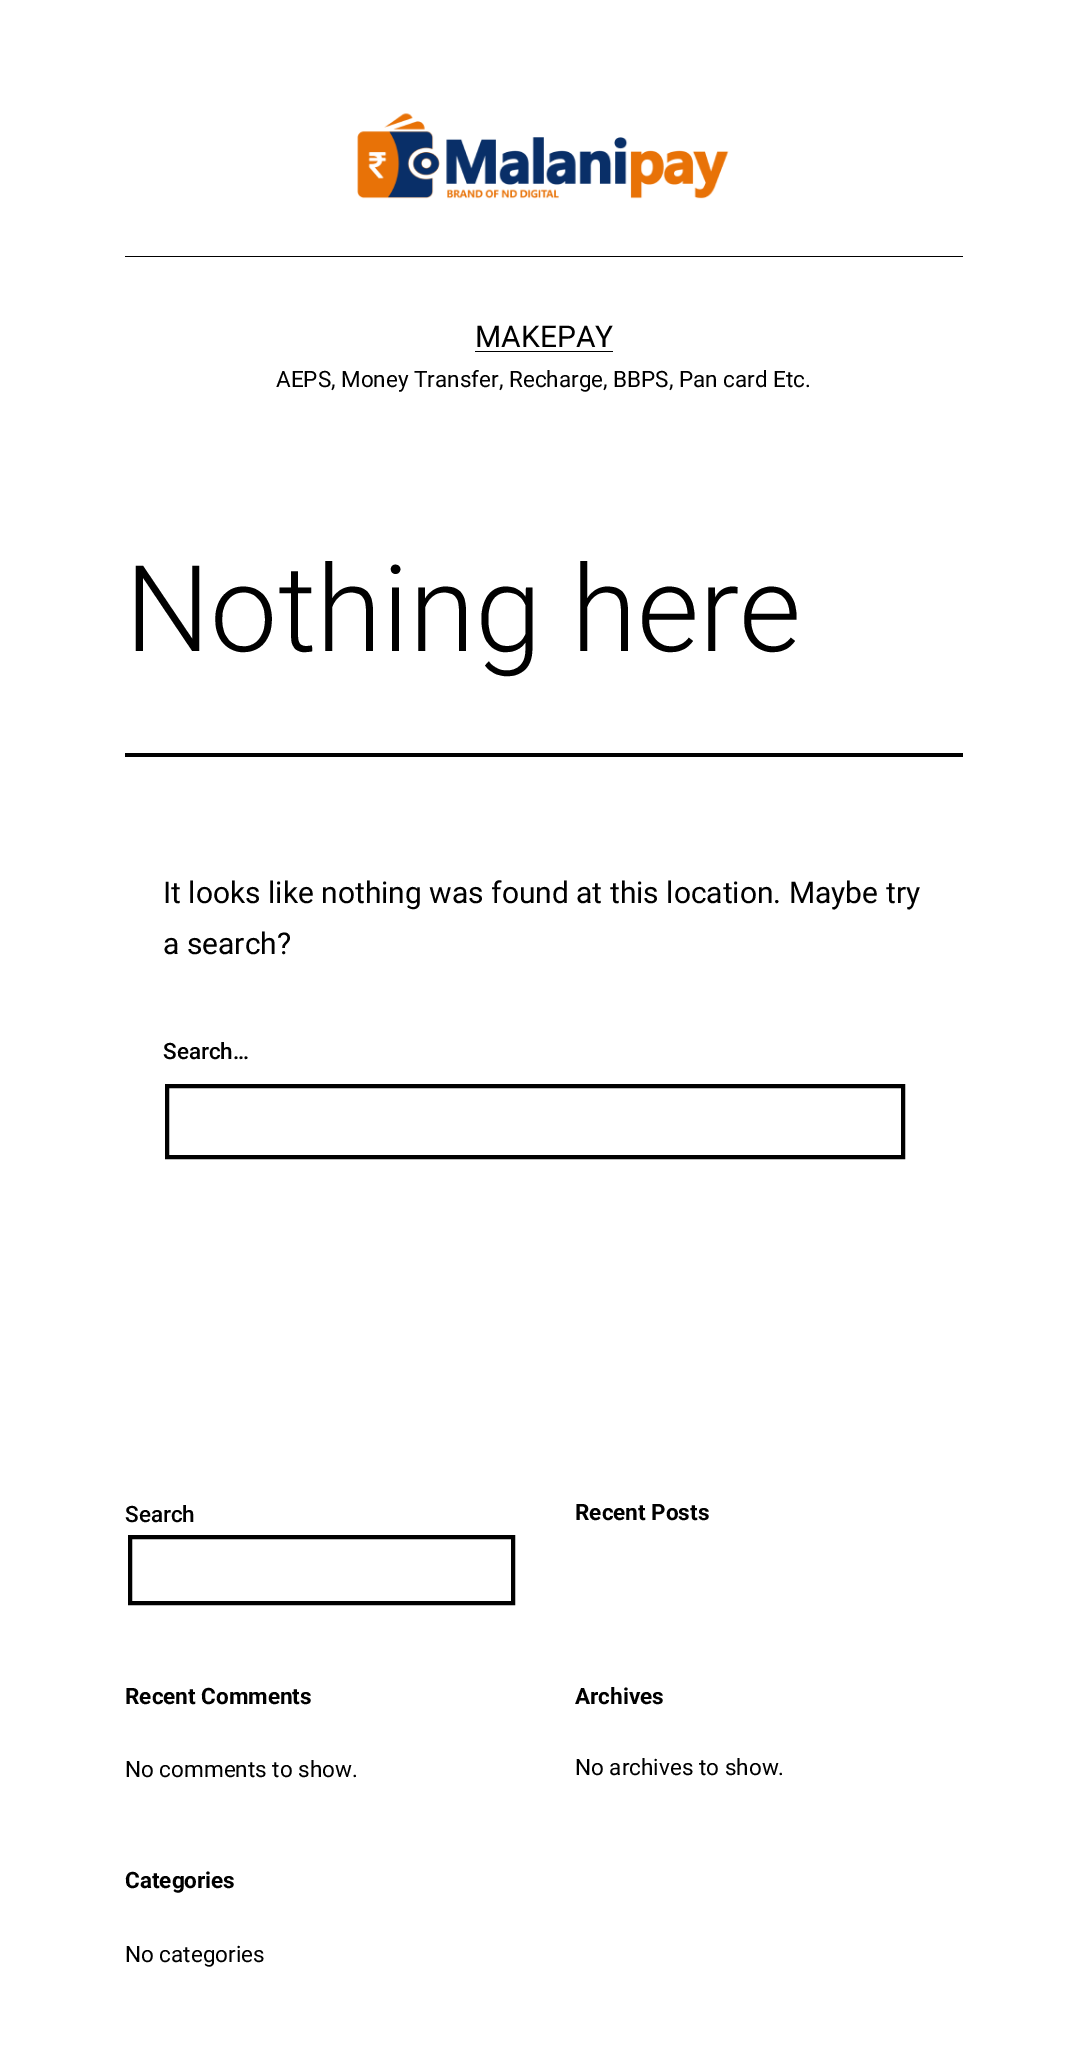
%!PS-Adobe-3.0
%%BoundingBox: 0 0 1087 2056
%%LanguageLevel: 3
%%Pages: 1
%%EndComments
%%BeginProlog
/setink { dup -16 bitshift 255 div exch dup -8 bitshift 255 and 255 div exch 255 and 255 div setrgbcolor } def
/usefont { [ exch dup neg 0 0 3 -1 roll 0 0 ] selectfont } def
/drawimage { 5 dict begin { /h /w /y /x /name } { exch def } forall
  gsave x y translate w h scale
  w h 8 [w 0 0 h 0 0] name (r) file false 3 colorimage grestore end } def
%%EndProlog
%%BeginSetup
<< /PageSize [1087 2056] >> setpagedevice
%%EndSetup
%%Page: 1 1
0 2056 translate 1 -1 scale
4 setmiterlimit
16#FFFFFF setink
0 0 1087 2056 rectfill
16#000000 setink
125 256 838 1 rectfill
(img1.raw) 357 113 372 86 drawimage
/Roboto-Regular 30 usefont
475 347 moveto (MAKEPAY) show
475 351 138 1 rectfill
/Roboto-Regular 22.5 usefont
276 387 moveto (AEPS, Money Transfer, Recharge, BBPS, Pan card Etc.) show
125 753 838 4 rectfill
/Roboto-Light 120 usefont
125 651 moveto (Nothing here) show
/Roboto-Regular 30 usefont
163 903 moveto (It looks like nothing was found at this location. Maybe try) show
163 954 moveto (a search?) show
/Roboto-Medium 22.5 usefont
163 1059 moveto (Search…) show
4 setlinewidth
167 1086 736 71 rectstroke
125 1522 moveto (Search) show
130 1537 383 66 rectstroke
/Roboto-Bold 22.5 usefont
575 1520 moveto (Recent Posts) show
125 1704 moveto (Recent Comments) show
/Roboto-Regular 22.5 usefont
125 1777 moveto (No comments to show.) show
/Roboto-Bold 22.5 usefont
575 1704 moveto (Archives) show
/Roboto-Regular 22.5 usefont
575 1775 moveto (No archives to show.) show
/Roboto-Bold 22.5 usefont
125 1888 moveto (Categories) show
/Roboto-Regular 22.5 usefont
125 1962 moveto (No categories) show
showpage
%%EOF
